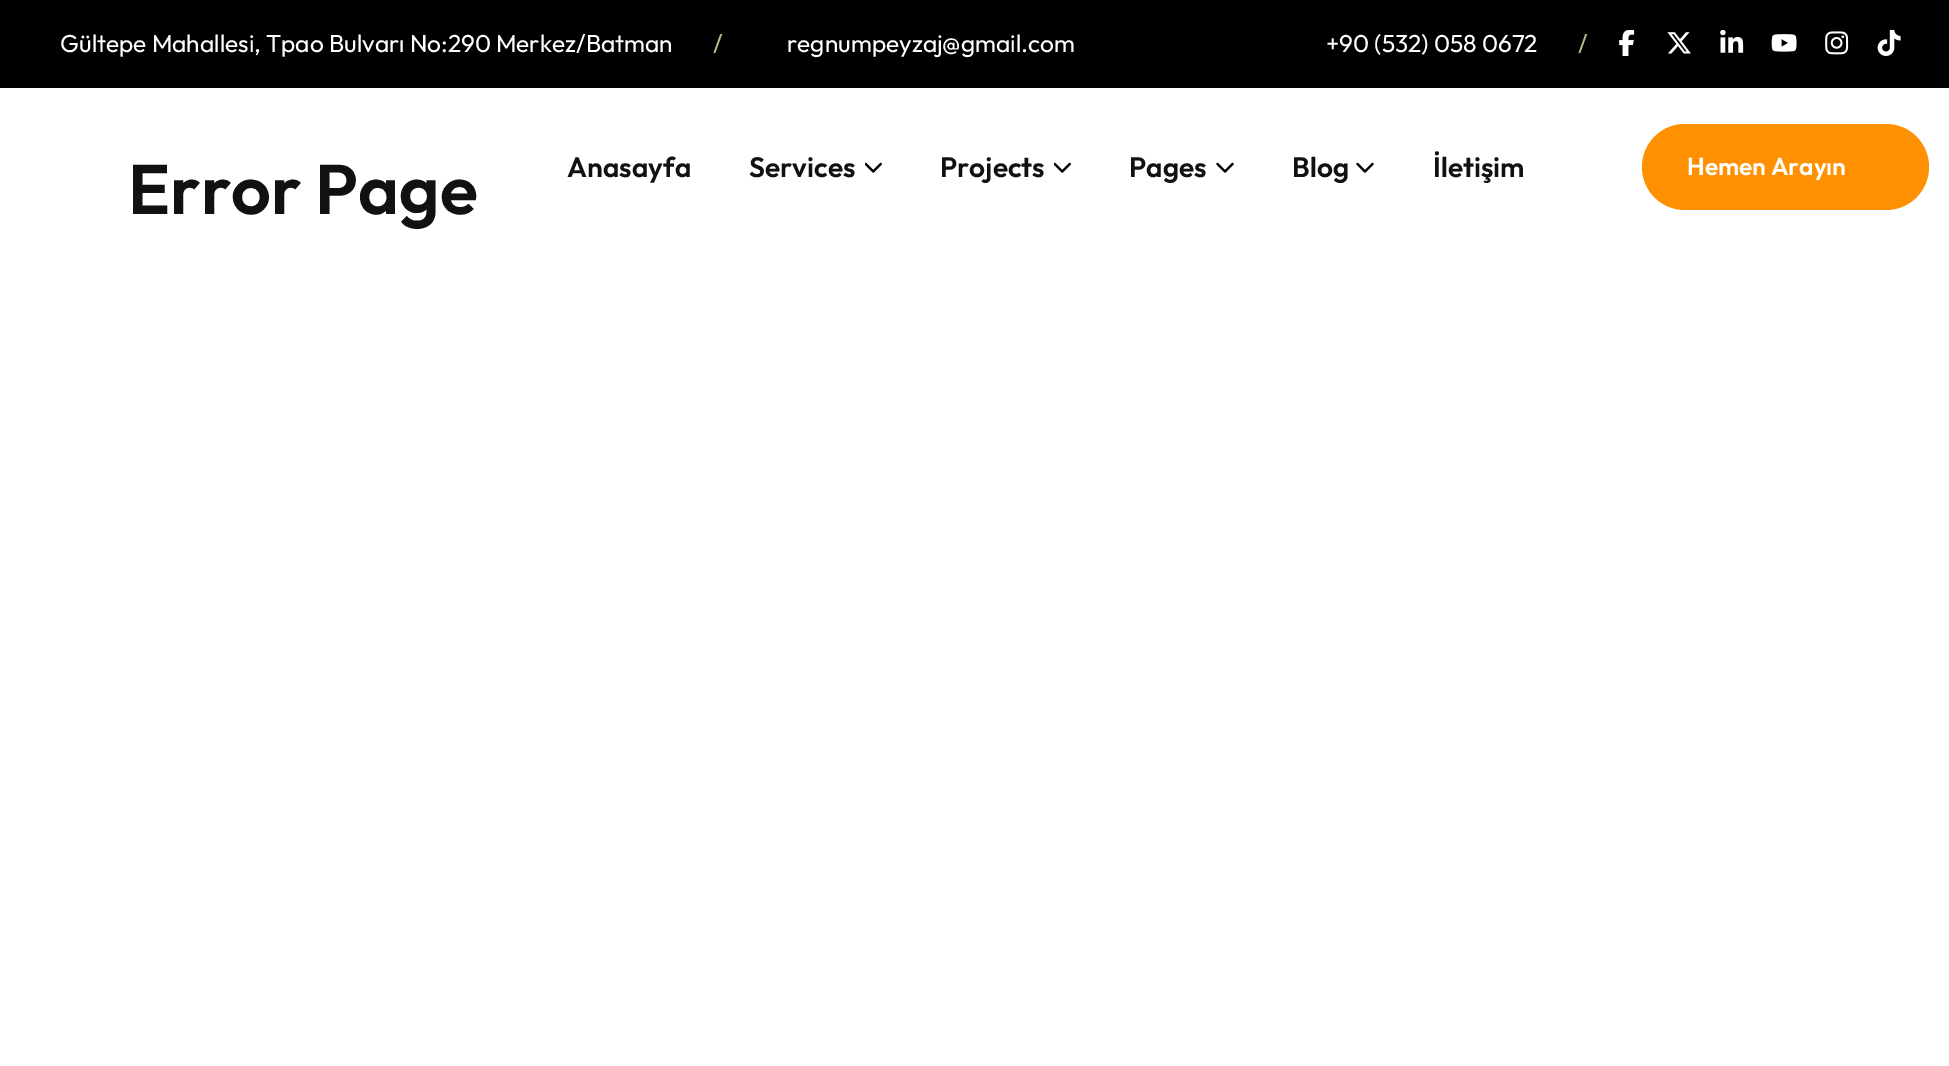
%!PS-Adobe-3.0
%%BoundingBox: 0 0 1949 1066
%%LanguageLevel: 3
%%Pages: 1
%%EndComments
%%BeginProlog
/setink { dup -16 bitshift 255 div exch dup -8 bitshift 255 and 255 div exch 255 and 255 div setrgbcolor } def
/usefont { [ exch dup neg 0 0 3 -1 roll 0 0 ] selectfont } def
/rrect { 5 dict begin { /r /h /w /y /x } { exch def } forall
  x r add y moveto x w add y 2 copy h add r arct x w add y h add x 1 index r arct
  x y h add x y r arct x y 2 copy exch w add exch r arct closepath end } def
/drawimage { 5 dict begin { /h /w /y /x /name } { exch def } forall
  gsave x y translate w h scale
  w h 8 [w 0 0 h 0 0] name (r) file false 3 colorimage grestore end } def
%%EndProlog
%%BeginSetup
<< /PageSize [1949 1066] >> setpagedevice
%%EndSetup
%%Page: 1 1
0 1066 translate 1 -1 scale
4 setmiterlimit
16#FFFFFF setink
0 0 1949 1066 rectfill
16#000000 setink
0 0 1949 88 rectfill
/Outfit-Regular 24.5 usefont
16#FFFFFF setink
60 52 moveto (Gültepe Mahallesi, Tpao Bulvarı No:290 Merkez/Batman) show
16#B1C387 setink
713 52 moveto (/) show
16#FFFFFF setink
787 52 moveto (regnumpeyzaj@gmail.com) show
1326 52 moveto (+90 \(532\) 058 0672) show
16#B1C387 setink
1578 52 moveto (/) show
(img1.raw) 1619 30 16 26 drawimage
(img2.raw) 1667 32 24 22 drawimage
(img3.raw) 1720 30 24 23 drawimage
(img4.raw) 1771 34 26 18 drawimage
(img5.raw) 1825 31 24 24 drawimage
(img6.raw) 1877 30 24 26 drawimage
/Outfit-SemiBold 28 usefont
16#111111 setink
567 177 moveto (Anasayfa) show
749 177 moveto (Services) show
(img7.raw) 865 162 17 11 drawimage
940 177 moveto (Projects) show
(img7.raw) 1054 162 17 11 drawimage
1129 177 moveto (Pages) show
(img8.raw) 1216 162 18 11 drawimage
1292 177 moveto (Blog) show
(img8.raw) 1356 162 18 11 drawimage
1433 177 moveto (İletişim) show
16#FF9002 setink
1642 124 287 86 43 rrect fill
/Outfit-SemiBold 24.5 usefont
16#FFFFFF setink
1687 175 moveto (Hemen Arayın) show
/Outfit-SemiBold 70 usefont
16#111111 setink
128 214 moveto (Error Page) show
showpage
%%EOF
